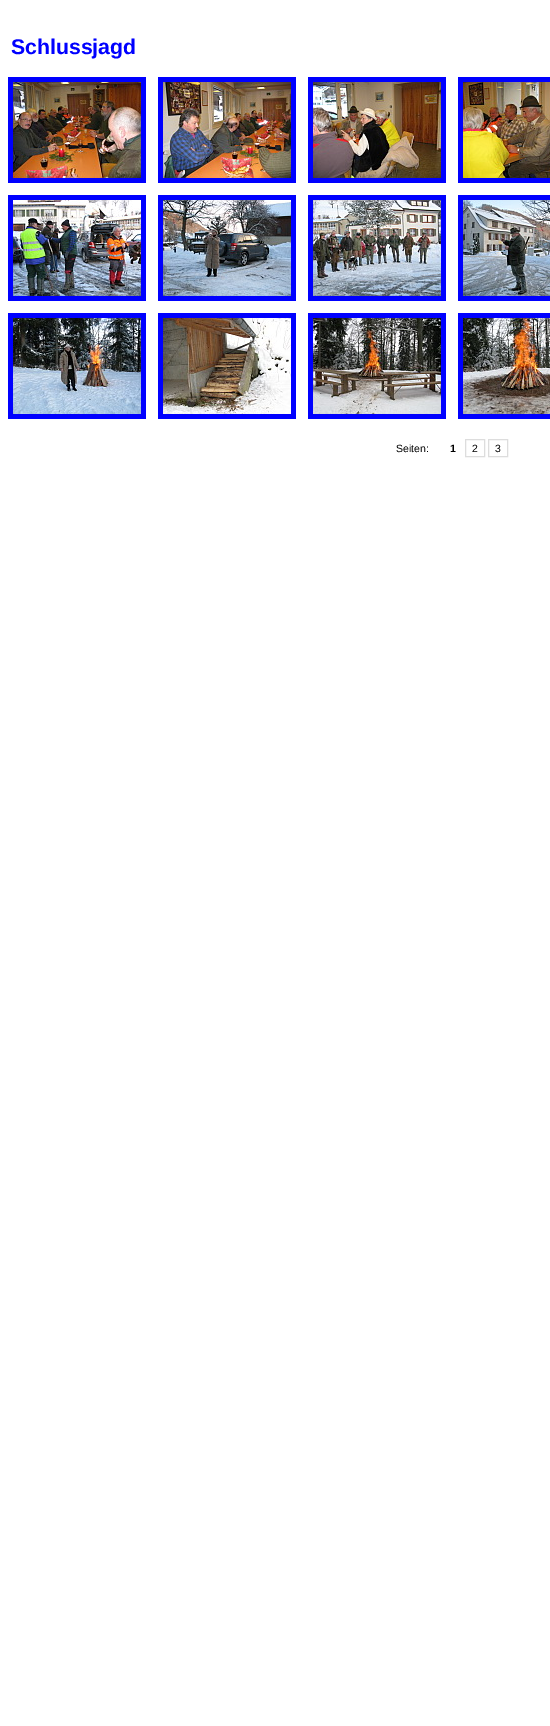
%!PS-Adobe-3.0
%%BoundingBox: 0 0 550 1726
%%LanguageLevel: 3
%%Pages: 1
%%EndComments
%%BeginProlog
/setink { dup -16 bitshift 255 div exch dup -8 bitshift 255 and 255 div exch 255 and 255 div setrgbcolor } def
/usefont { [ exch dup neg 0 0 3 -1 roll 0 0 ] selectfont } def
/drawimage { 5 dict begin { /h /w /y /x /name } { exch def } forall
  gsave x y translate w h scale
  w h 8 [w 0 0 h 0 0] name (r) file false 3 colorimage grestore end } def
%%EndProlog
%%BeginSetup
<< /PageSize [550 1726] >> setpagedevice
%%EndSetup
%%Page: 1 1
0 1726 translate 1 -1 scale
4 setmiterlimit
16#FFFFFF setink
0 0 550 1726 rectfill
/LiberationSans-Bold 21.25 usefont
16#0000FF setink
11 54 moveto (Schlussjagd) show
8 77 138 106 rectfill
(img1.raw) 13 82 128 96 drawimage
158 77 138 106 rectfill
(img2.raw) 163 82 128 96 drawimage
308 77 138 106 rectfill
(img3.raw) 313 82 128 96 drawimage
458 77 92 106 rectfill
(img4.raw) 463 82 87 96 drawimage
8 195 138 106 rectfill
(img5.raw) 13 200 128 96 drawimage
158 195 138 106 rectfill
(img6.raw) 163 200 128 96 drawimage
308 195 138 106 rectfill
(img7.raw) 313 200 128 96 drawimage
458 195 92 106 rectfill
(img8.raw) 463 200 87 96 drawimage
8 313 138 106 rectfill
(img9.raw) 13 318 128 96 drawimage
158 313 138 106 rectfill
(img10.raw) 163 318 128 96 drawimage
308 313 138 106 rectfill
(img11.raw) 313 318 128 96 drawimage
458 313 92 106 rectfill
(img12.raw) 463 318 87 96 drawimage
/LiberationSans-Regular 10.5 usefont
16#000000 setink
396 452 moveto (Seiten:) show
/LiberationSans-Bold 10.5 usefont
450 452 moveto (1) show
16#DDDDDD setink
465.5 439.5 19 17 rectstroke
/LiberationSans-Regular 10.5 usefont
16#000000 setink
472 452 moveto (2) show
16#DDDDDD setink
488.5 439.5 19 17 rectstroke
16#000000 setink
495 452 moveto (3) show
showpage
%%EOF
